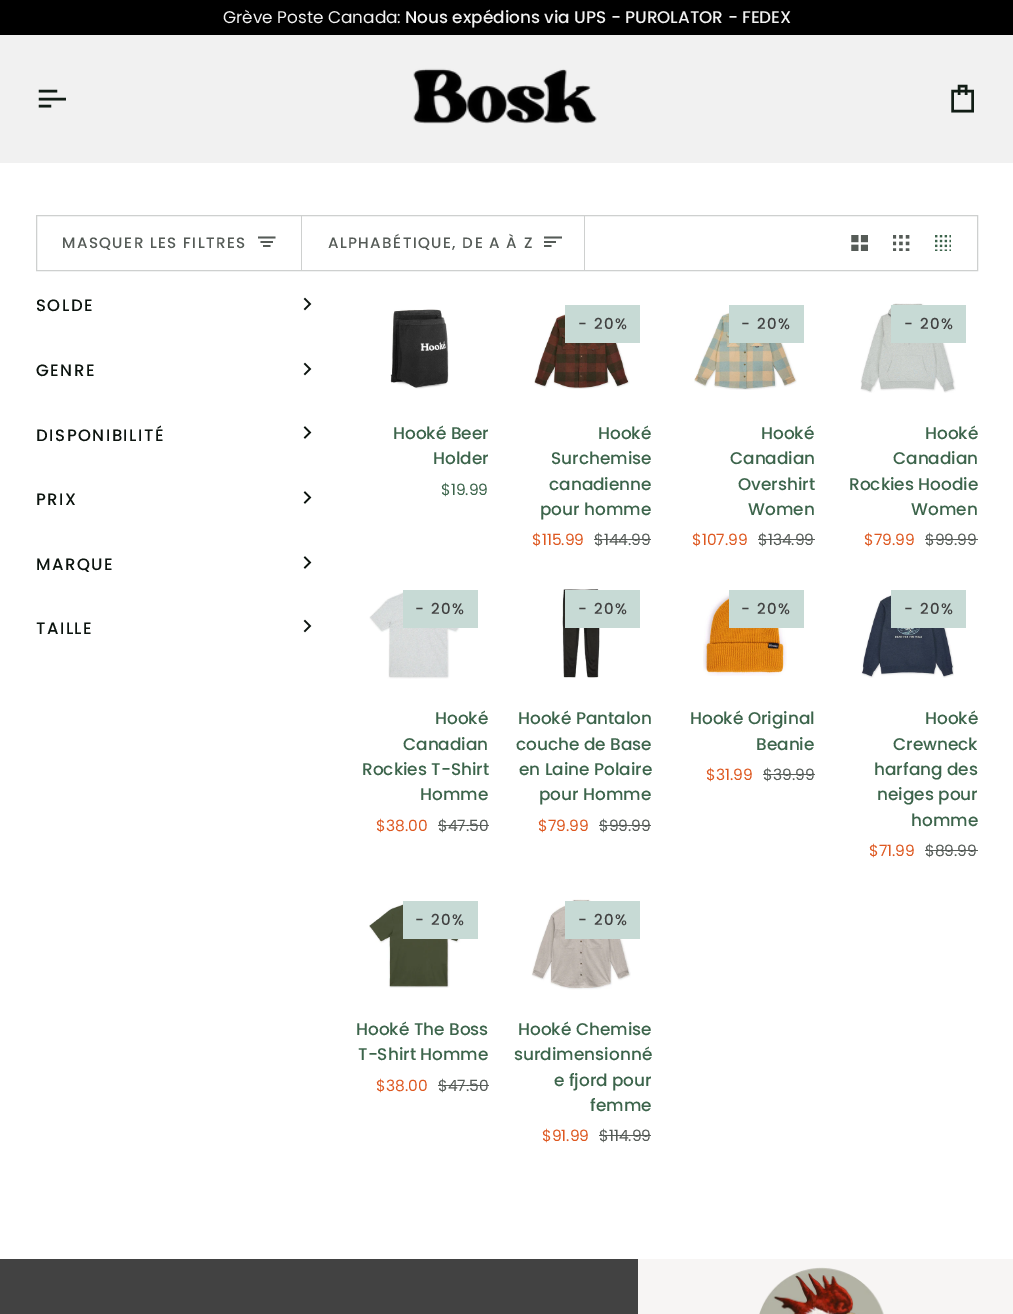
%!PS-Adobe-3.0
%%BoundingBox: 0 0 1013 1314
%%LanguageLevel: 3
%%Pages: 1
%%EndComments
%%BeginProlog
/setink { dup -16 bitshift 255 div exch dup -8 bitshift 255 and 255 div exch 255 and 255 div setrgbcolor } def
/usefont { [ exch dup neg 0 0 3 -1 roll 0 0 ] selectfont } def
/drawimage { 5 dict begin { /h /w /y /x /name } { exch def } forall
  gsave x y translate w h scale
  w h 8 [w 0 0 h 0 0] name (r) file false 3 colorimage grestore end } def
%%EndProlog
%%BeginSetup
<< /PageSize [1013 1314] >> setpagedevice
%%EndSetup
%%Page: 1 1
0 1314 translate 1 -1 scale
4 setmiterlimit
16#FFFFFF setink
0 0 1013 1314 rectfill
16#F1F1F1 setink
0 35 1013 128 rectfill
16#000000 setink
0 0 1013 35 rectfill
/Poppins-Regular 16.9 usefont
16#F1F1F1 setink
223 23 moveto (Grève Poste Canada:) show
/Poppins-Medium 16.9 usefont
405 23 moveto (Nous expédions via UPS - PUROLATOR - FEDEX) show
gsave
36 84 30 30 rectclip
16#111D15 setink
2.5 setlinewidth
2 setlinecap
56 91 moveto 40 91 lineto 65 99 moveto 40 99 lineto 50 106 moveto 40 106 lineto stroke
grestore
(img1.raw) 413 68 184 56 drawimage
16#111D15 setink
2.5 setlinewidth
952.5 91 moveto 972.5 91 lineto 972.5 111 lineto 952.5 111 lineto closepath 959 95 moveto 959 86 lineto 966 86 lineto 966 95 lineto stroke
16#CED0CF setink
1 setlinewidth
36.5 215.5 941 55 rectstroke
301 216 1 54 rectfill
/Poppins-Medium 15.1 usefont
16#555B57 setink
62 248 moveto 1.4 0 (MASQUER LES FILTRES) ashow
1.8 setlinewidth
2 setlinecap
274.5 237.5 moveto 259 237.5 lineto 272 242 moveto 261.5 242 lineto 269.5 246 moveto 264 246 lineto stroke
16#CED0CF setink
584 216 1 54 rectfill
16#555B57 setink
328 248 moveto 1.4 0 (ALPHABÉTIQUE, DE A À Z) ashow
561 237.5 moveto 545 237.5 lineto 555 242 moveto 545 242 lineto 550.5 246 moveto 545 246 lineto stroke
(img2.raw) 851 235 17 16 drawimage
(img3.raw) 893 235 17 16 drawimage
(img4.raw) 935 235 16 16 drawimage
/Poppins-Medium 16.5 usefont
16#0C140F setink
36 311 moveto 1.5 0 (SOLDE) ashow
1.7 setlinewidth
305 309 moveto 310 304 lineto 305 299 lineto stroke
36 376 moveto 1.5 0 (GENRE) ashow
305 374 moveto 310 369 lineto 305 364 lineto stroke
36 441 moveto 1.5 0 (DISPONIBILITÉ) ashow
305 437.5 moveto 310 432.5 lineto 305 427.5 lineto stroke
36 505 moveto 1.5 0 (PRIX) ashow
305 502.5 moveto 310 497.5 lineto 305 492.5 lineto stroke
36 570 moveto 1.5 0 (MARQUE) ashow
305 567.5 moveto 310 562.5 lineto 305 557.5 lineto stroke
36 634 moveto 1.5 0 (TAILLE) ashow
305 631 moveto 310 626 lineto 305 621 lineto stroke
(img5.raw) 390 309 59 80 drawimage
/Poppins-Medium 16.9 usefont
16#3C644B setink
393 439 moveto (Hooké Beer) show
433 464 moveto (Holder) show
/Poppins-Regular 15.5 usefont
441 495 moveto ($19.99) show
(img6.raw) 534 307 96 82 drawimage
16#C7DAD5 setink
565 305 75 38 rectfill
/Poppins-Medium 15.1 usefont
16#424242 setink
578 329 moveto 1.4 0 (- 20%) ashow
/Poppins-Medium 16.9 usefont
16#3C644B setink
[
    [(Hooké) 598 439]
    [(Surchemise) 551 464]
    [(canadienne) 549 490]
    [(pour homme) 540 515]
] { aload pop moveto show } forall
/Poppins-Regular 15.5 usefont
16#DE5820 setink
532 545 moveto ($115.99) show
16#555B57 setink
594 545 moveto ($144.99) show
594 539 57 1 rectfill
(img7.raw) 694 306 103 84 drawimage
16#C7DAD5 setink
729 305 75 38 rectfill
/Poppins-Medium 15.1 usefont
16#424242 setink
741 329 moveto 1.4 0 (- 20%) ashow
/Poppins-Medium 16.9 usefont
16#3C644B setink
[
    [(Hooké) 761 439]
    [(Canadian) 730 464]
    [(Overshirt) 738 490]
    [(Women) 748 515]
] { aload pop moveto show } forall
/Poppins-Regular 15.5 usefont
16#DE5820 setink
692 545 moveto ($107.99) show
16#555B57 setink
758 545 moveto ($134.99) show
758 539 57 1 rectfill
(img8.raw) 860 303 96 90 drawimage
16#C7DAD5 setink
891 305 75 38 rectfill
/Poppins-Medium 15.1 usefont
16#424242 setink
904 329 moveto 1.4 0 (- 20%) ashow
/Poppins-Medium 16.9 usefont
16#3C644B setink
[
    [(Hooké) 925 439]
    [(Canadian) 893 464]
    [(Rockies Hoodie) 849 490]
    [(Women) 911 515]
] { aload pop moveto show } forall
/Poppins-Regular 15.5 usefont
16#DE5820 setink
864 545 moveto ($79.99) show
16#555B57 setink
925 545 moveto ($99.99) show
925 539 53 1 rectfill
(img9.raw) 369 590 99 89 drawimage
16#C7DAD5 setink
403 590 75 38 rectfill
/Poppins-Medium 15.1 usefont
16#424242 setink
415 614 moveto 1.4 0 (- 20%) ashow
/Poppins-Medium 16.9 usefont
16#3C644B setink
[
    [(Hooké) 435 724]
    [(Canadian) 403 750]
    [(Rockies T-Shirt) 362 775]
    [(Homme) 420 800]
] { aload pop moveto show } forall
/Poppins-Regular 15.5 usefont
16#DE5820 setink
376 831 moveto ($38.00) show
16#555B57 setink
438 831 moveto ($47.50) show
438 825 51 1 rectfill
(img10.raw) 562 589 38 89 drawimage
16#C7DAD5 setink
565 590 75 38 rectfill
/Poppins-Medium 15.1 usefont
16#424242 setink
578 614 moveto 1.4 0 (- 20%) ashow
/Poppins-Medium 16.9 usefont
16#3C644B setink
[
    [(Hooké Pantalon) 518 724]
    [(couche de Base) 516 750]
    [(en Laine Polaire) 519 775]
    [(pour Homme) 539 800]
] { aload pop moveto show } forall
/Poppins-Regular 15.5 usefont
16#DE5820 setink
538 831 moveto ($79.99) show
16#555B57 setink
599 831 moveto ($99.99) show
599 825 52 1 rectfill
(img11.raw) 703 590 84 86 drawimage
16#C7DAD5 setink
729 590 75 38 rectfill
/Poppins-Medium 15.1 usefont
16#424242 setink
741 614 moveto 1.4 0 (- 20%) ashow
/Poppins-Medium 16.9 usefont
16#3C644B setink
690 724 moveto (Hooké Original) show
756 750 moveto (Beanie) show
/Poppins-Regular 15.5 usefont
16#DE5820 setink
706 780 moveto ($31.99) show
16#555B57 setink
763 780 moveto ($39.99) show
763 774 52 1 rectfill
(img12.raw) 861 591 93 87 drawimage
16#C7DAD5 setink
891 590 75 38 rectfill
/Poppins-Medium 15.1 usefont
16#424242 setink
904 614 moveto 1.4 0 (- 20%) ashow
/Poppins-Medium 16.9 usefont
16#3C644B setink
[
    [(Hooké) 925 724]
    [(Crewneck) 893 750]
    [(harfang des) 874 775]
    [(neiges pour) 877 800]
    [(homme) 911 826]
] { aload pop moveto show } forall
/Poppins-Regular 15.5 usefont
16#DE5820 setink
869 856 moveto ($71.99) show
16#555B57 setink
925 856 moveto ($89.99) show
925 850 53 1 rectfill
(img13.raw) 369 902 100 86 drawimage
16#C7DAD5 setink
403 901 75 38 rectfill
/Poppins-Medium 15.1 usefont
16#424242 setink
415 925 moveto 1.4 0 (- 20%) ashow
/Poppins-Medium 16.9 usefont
16#3C644B setink
356 1035 moveto (Hooké The Boss) show
358 1060 moveto (T-Shirt Homme) show
/Poppins-Regular 15.5 usefont
16#DE5820 setink
376 1091 moveto ($38.00) show
16#555B57 setink
438 1091 moveto ($47.50) show
438 1085 51 1 rectfill
(img14.raw) 531 899 100 91 drawimage
16#C7DAD5 setink
565 901 75 38 rectfill
/Poppins-Medium 15.1 usefont
16#424242 setink
578 925 moveto 1.4 0 (- 20%) ashow
/Poppins-Medium 16.9 usefont
16#3C644B setink
[
    [(Hooké Chemise) 518 1035]
    [(surdimensionné) 514 1060]
    [(e fjord pour) 554 1086]
    [(femme) 590 1111]
] { aload pop moveto show } forall
/Poppins-Regular 15.5 usefont
16#DE5820 setink
542 1141 moveto ($91.99) show
16#555B57 setink
599 1141 moveto ($114.99) show
[
    [599 1135 52 1 16#555B57]
    [0 1259 638 55 16#424242]
    [638 1259 375 55 16#F7F5F4]
] { aload pop setink rectfill } forall
(img15.raw) 759 1267 125 47 drawimage
showpage
%%EOF
